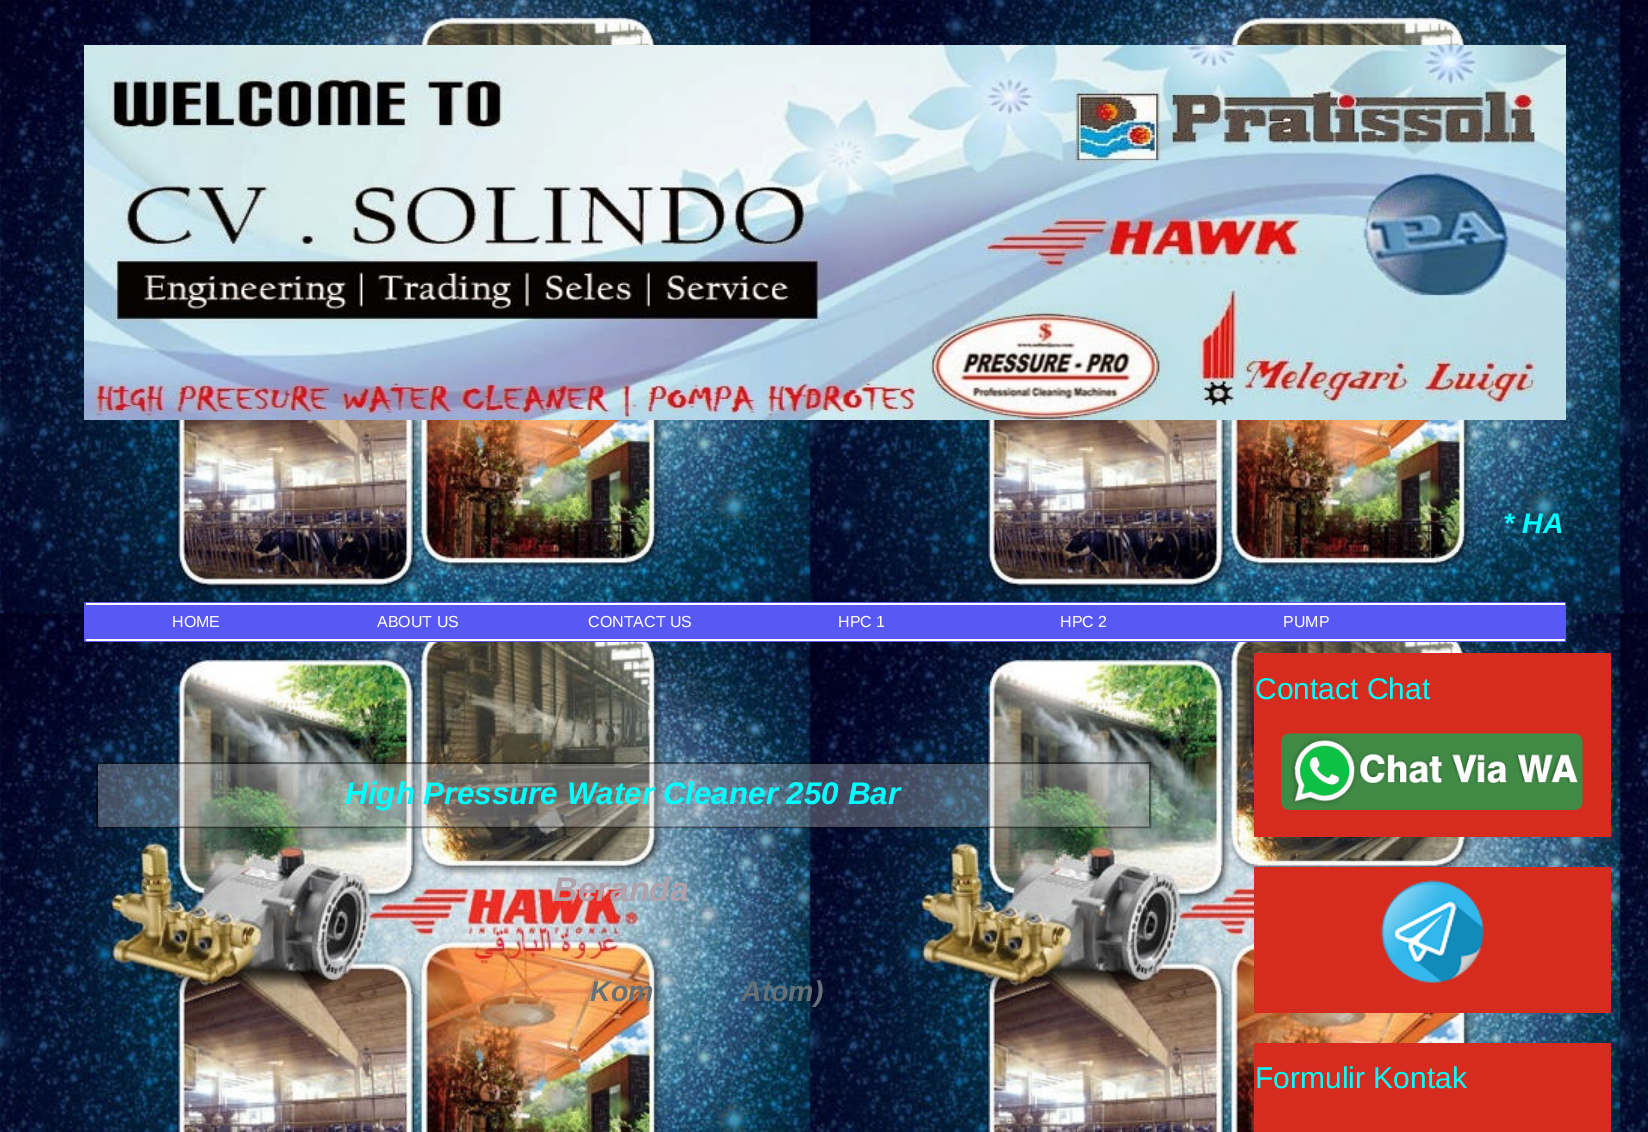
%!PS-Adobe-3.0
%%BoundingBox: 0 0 1648 1132
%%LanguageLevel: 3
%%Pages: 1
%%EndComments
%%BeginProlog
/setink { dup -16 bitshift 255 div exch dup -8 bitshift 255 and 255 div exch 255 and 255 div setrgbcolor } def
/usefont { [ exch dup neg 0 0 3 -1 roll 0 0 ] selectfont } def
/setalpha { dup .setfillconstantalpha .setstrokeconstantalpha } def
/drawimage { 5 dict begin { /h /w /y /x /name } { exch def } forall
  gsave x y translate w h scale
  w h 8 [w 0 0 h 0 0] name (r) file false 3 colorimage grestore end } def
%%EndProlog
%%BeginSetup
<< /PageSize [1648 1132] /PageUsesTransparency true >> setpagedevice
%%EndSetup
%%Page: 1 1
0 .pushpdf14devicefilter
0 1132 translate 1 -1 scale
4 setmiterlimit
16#FFFFFF setink
0 0 1648 1132 rectfill
(img1.raw) 0 0 1648 1132 drawimage
(img2.raw) 84 45 1482 375 drawimage
/LiberationSans-BoldItalic 28.5 usefont
16#00FFFF setink
1503 533 moveto (* HA) show
[
    [84 602 1482 40 16#5858F4]
    [86 603 1479 2 16#FFFFFF]
    [86 639 1479 2 16#FFFFFF]
] { aload pop setink rectfill } forall
/LiberationSans-Regular 16 usefont
[
    [(HOME) 172 627]
    [(ABOUT US) 377 627]
    [(CONTACT US) 588 627]
    [(HPC 1) 838 627]
    [(HPC 2) 1060 627]
    [(PUMP) 1283 627]
] { aload pop moveto show } forall
0.4 setalpha
16#000000 setink
2 setlinewidth
97 763 1053 64 rectstroke
0.32 setalpha
16#CCCCCC setink
98 764 1051 63 rectfill
/LiberationSans-BoldItalic 31.4 usefont
1 setalpha
16#00FFFF setink
345 804 moveto (High Pressure Water Cleaner 250 Bar) show
/LiberationSans-BoldItalic 34 usefont
16#B1A1AA setink
553 901 moveto (Beranda) show
/LiberationSans-BoldItalic 28.5 usefont
16#657176 setink
590 1001 moveto (Kom) show
741 1001 moveto (Atom\)) show
16#D52C1F setink
1254 653 357 184 rectfill
/LiberationSans-Regular 30 usefont
16#00FFFF setink
1255 699 moveto (Contact Chat) show
(img3.raw) 1281 733 302 77 drawimage
16#D52C1F setink
1254 867 357 146 rectfill
(img4.raw) 1381 880 103 103 drawimage
1254 1043 357 89 rectfill
16#00FFFF setink
1255 1088 moveto (Formulir Kontak) show
.poppdf14devicefilter showpage
%%EOF
